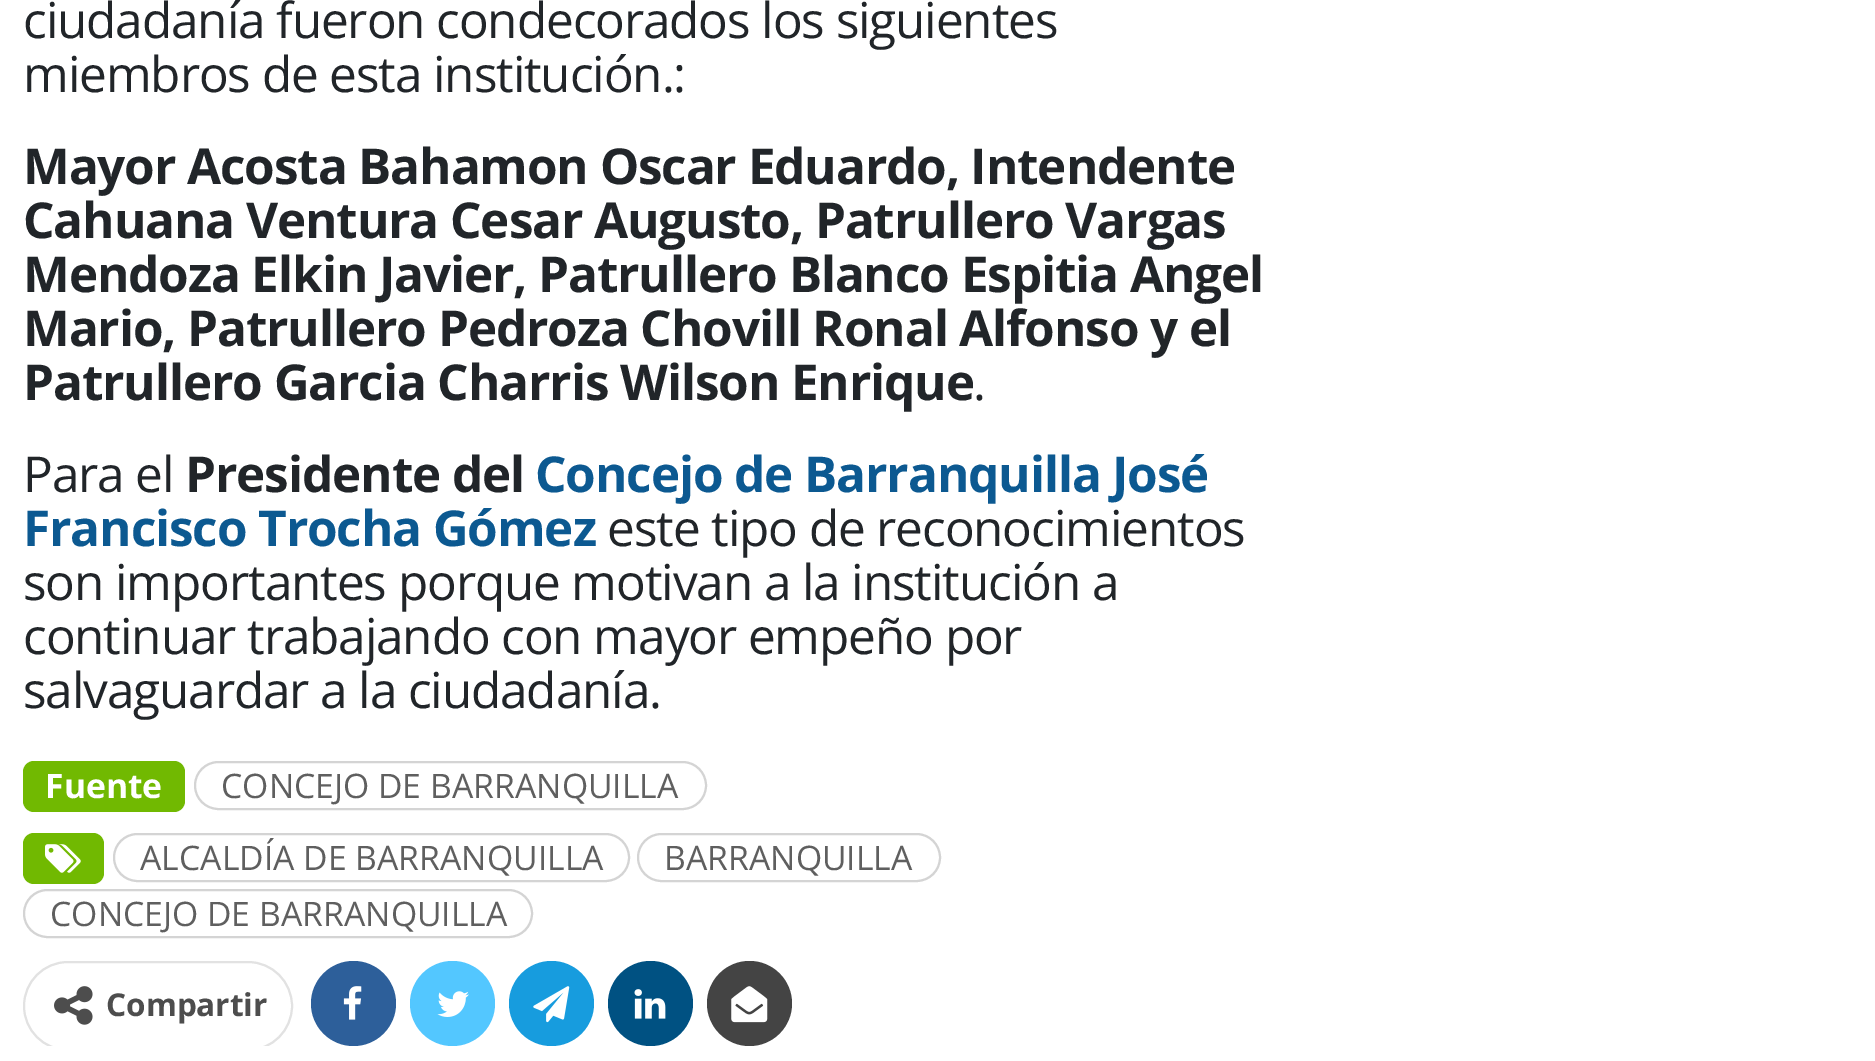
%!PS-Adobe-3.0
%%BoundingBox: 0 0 1875 1061
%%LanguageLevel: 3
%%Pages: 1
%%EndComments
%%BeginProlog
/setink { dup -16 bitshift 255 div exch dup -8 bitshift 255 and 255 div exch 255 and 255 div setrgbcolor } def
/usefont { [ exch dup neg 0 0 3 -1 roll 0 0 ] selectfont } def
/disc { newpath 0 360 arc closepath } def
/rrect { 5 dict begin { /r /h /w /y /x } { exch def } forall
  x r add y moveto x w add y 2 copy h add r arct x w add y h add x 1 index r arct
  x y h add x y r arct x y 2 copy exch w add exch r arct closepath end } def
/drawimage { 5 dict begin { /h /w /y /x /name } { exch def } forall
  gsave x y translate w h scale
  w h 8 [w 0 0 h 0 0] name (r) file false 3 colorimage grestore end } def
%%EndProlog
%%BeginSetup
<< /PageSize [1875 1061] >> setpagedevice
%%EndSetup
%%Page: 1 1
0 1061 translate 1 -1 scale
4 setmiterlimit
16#FFFFFF setink
0 0 1875 1061 rectfill
/OpenSans-Regular 49.5 usefont
16#212529 setink
23 38 moveto -1.12 0 (ciudadanía fueron condecorados los siguientes) ashow
23 92 moveto -1.12 0 (miembros de esta institución.:) ashow
/OpenSans-Bold 49.5 usefont
23 184 moveto -1.12 0 (Mayor Acosta Bahamon Oscar Eduardo, Intendente) ashow
23 238 moveto -1.12 0 (Cahuana Ventura Cesar Augusto, Patrullero Vargas) ashow
23 292 moveto -1.12 0 (Mendoza Elkin Javier, Patrullero Blanco Espitia Angel) ashow
23 346 moveto -1.12 0 (Mario, Patrullero Pedroza Chovill Ronal Alfonso y el) ashow
23 400 moveto -1.12 0 (Patrullero Garcia Charris Wilson Enrique) ashow
/OpenSans-Regular 49.5 usefont
973 400 moveto -1.12 0 (.) ashow
23 492 moveto -1.12 0 (Para el) ashow
/OpenSans-Bold 49.5 usefont
185 492 moveto -1.12 0 (Presidente del) ashow
16#0C5991 setink
535 492 moveto -1.12 0 (Concejo de Barranquilla José) ashow
23 546 moveto -1.12 0 (Francisco Trocha Gómez) ashow
/OpenSans-Regular 49.5 usefont
16#212529 setink
607 546 moveto -1.12 0 (este tipo de reconocimientos) ashow
23 600 moveto -1.12 0 (son importantes porque motivan a la institución a) ashow
23 654 moveto -1.12 0 (continuar trabajando con mayor empeño por) ashow
23 708 moveto -1.12 0 (salvaguardar a la ciudadanía.) ashow
16#71B901 setink
23 761 162 51 11 rrect fill
/OpenSans-Bold 33.75 usefont
16#FFFFFF setink
45 798 moveto (Fuente) show
16#D4D4D4 setink
2 setlinewidth
195 762 511 47 23.5 rrect stroke
/OpenSans-Regular 33.75 usefont
16#5F5F5F setink
221 798 moveto (CONCEJO DE BARRANQUILLA) show
16#71B901 setink
23 833 81 51 11 rrect fill
(img1.raw) 45 844 36 29 drawimage
16#D4D4D4 setink
114 834 515 47 23.5 rrect stroke
16#5F5F5F setink
140 870 moveto (ALCALDÍA DE BARRANQUILLA) show
16#D4D4D4 setink
638 834 302 47 23.5 rrect stroke
16#5F5F5F setink
664 870 moveto (BARRANQUILLA) show
16#D4D4D4 setink
24 890 508 47 23.5 rrect stroke
16#5F5F5F setink
50 926 moveto (CONCEJO DE BARRANQUILLA) show
gsave
23 961 1269 85 rectclip
16#E2E2E2 setink
24 962 268 88 44 rrect stroke
grestore
(img2.raw) 54 986 39 39 drawimage
/OpenSans-Bold 31.5 usefont
16#4D4D4D setink
106 1016 moveto (Compartir) show
16#2D5F9A setink
353.5 1003.5 42.5 disc fill
(img3.raw) 343 986 19 34 drawimage
16#53C7FF setink
452.5 1003.5 42.5 disc fill
(img4.raw) 437 991 32 26 drawimage
16#179CDE setink
551.5 1003.5 42.5 disc fill
(img5.raw) 533 986 37 37 drawimage
16#005182 setink
650.5 1003.5 42.5 disc fill
(img6.raw) 634 989 32 30 drawimage
16#444444 setink
749.5 1003.5 42.5 disc fill
(img7.raw) 731 986 37 37 drawimage
showpage
%%EOF
